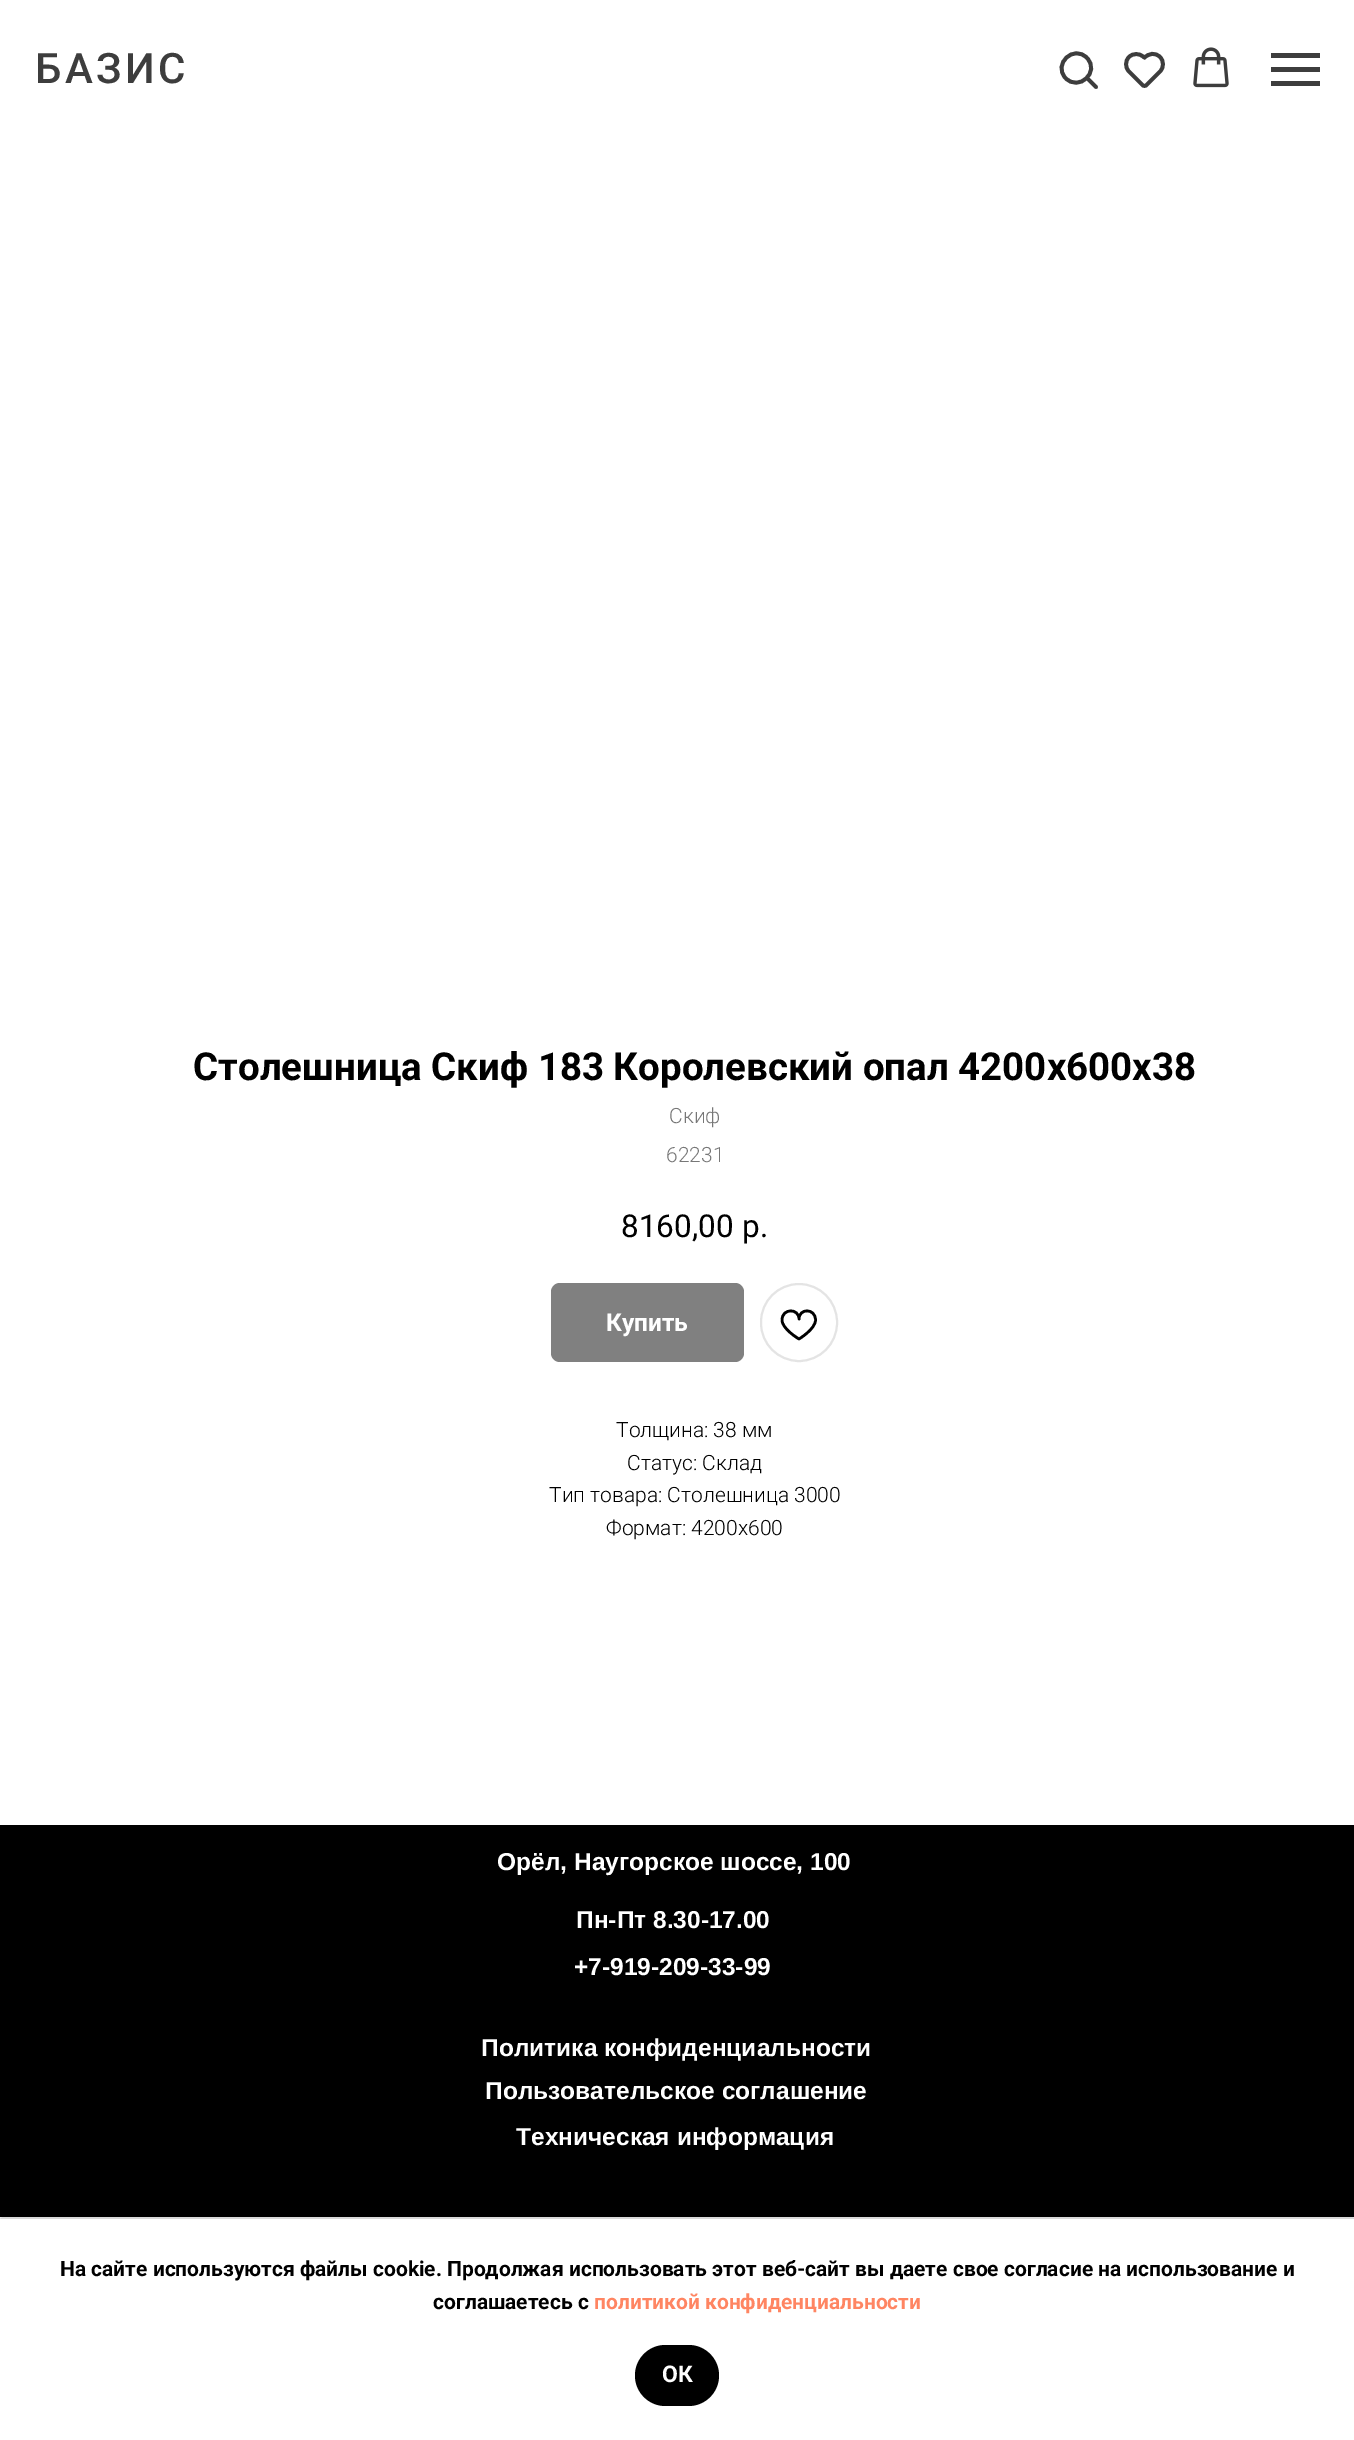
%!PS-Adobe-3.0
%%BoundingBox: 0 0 1354 2440
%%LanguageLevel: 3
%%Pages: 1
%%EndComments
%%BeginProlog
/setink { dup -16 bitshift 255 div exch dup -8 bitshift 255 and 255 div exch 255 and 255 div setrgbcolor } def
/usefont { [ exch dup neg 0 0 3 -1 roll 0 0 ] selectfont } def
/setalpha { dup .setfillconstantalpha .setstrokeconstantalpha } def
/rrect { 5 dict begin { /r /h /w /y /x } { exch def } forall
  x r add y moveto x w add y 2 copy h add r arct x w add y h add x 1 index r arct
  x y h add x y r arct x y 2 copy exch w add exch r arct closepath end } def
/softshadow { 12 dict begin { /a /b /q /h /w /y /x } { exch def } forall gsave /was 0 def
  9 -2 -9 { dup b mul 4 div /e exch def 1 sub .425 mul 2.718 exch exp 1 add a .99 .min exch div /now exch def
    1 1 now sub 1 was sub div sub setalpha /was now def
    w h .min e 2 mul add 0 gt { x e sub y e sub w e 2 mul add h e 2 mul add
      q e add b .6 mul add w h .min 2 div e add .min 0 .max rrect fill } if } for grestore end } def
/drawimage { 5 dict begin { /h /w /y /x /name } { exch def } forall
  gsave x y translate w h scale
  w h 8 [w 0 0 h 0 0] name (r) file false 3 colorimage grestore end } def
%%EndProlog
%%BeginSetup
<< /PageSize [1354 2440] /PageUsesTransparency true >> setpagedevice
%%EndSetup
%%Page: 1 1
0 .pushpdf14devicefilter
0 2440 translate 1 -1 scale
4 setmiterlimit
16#FFFFFF setink
0 0 1354 2440 rectfill
/Roboto-Medium 42 usefont
16#3D3D3D setink
35 83 moveto 3.5 0 (БАЗИС) ashow
3.8 setlinewidth
1087 58 moveto 1100.5 72 1078.5 92 1065.5 78 curveto 1052.5 64 1074 44 1087 58 curveto closepath stroke
1 setlinecap
1088.5 79.5 moveto 1096 87 lineto stroke
1160 57 moveto 1164 61 1164 67.5 1160 71.5 curveto 1146 85.5 lineto 1145 86 1144 86 1143 85.5 curveto 1129 71.5 lineto 1125 67.5 1125 61 1129 57 curveto 1133 53 1139.5 53 1143.5 57 curveto 1144.5 57.5 lineto 1149 53.5 1155 52 1160 57 curveto closepath stroke
(img1.raw) 1193 47 36 41 drawimage
[
    [1271 53 49 5 16#3D3D3D]
    [1271 67 49 5 16#3D3D3D]
    [1271 81 49 5 16#3D3D3D]
] { aload pop setink rectfill } forall
/Roboto-Bold 38.5 usefont
16#000000 setink
193 1080 moveto (Столешница Скиф 183 Королевский опал 4200х600х38) show
/Roboto-Light 21 usefont
16#777777 setink
669 1123 moveto (Скиф) show
666 1162 moveto (62231) show
/Roboto-Regular 31.5 usefont
16#000000 setink
621 1237 moveto (8160,00) show
742 1237 moveto (р.) show
16#808080 setink
551 1283 193 79 9 rrect fill
/Roboto-Bold 24.5 usefont
16#FFFFFF setink
606 1331 moveto (Купить) show
16#E4E4E4 setink
2 setlinewidth
0 setlinecap
761 1284 76 77 38 rrect stroke
16#000000 setink
2.6 setlinewidth
1 setlinejoin
815.5 1320 moveto 815.5 1329 799 1339 799 1339 curveto 799 1339 782 1329 782 1320 curveto 782 1308 799 1308 799 1319 curveto 799 1308 815.5 1308 815.5 1320 curveto closepath stroke
/Roboto-Light 21 usefont
[
    [(Толщина: 38 мм) 616 1437]
    [(Статус: Склад) 627 1470]
    [(Тип товара: Столешница 3000) 549 1502]
    [(Формат: 4200х600) 606 1535]
] { aload pop moveto show } forall
0 1825 1354 392 rectfill
/LiberationSans-Bold 24.5 usefont
16#FFFFFF setink
[
    [(Орёл, Наугорское шоссе, 100) 497 1870]
    [(Пн-Пт 8.30-17.00) 576 1928]
    [(+7-919-209-33-99) 574 1975]
    [(Политика конфиденциальности) 481 2056]
    [(Пользовательское соглашение) 485 2099]
    [(Техническая информация) 516 2145]
] { aload pop moveto show } forall
gsave
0 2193 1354 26 rectclip
16#000000 setink
0 2219 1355 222 0 17.5 0.3 softshadow
grestore
/Roboto-Bold 21 usefont
16#000000 setink
60 2276 moveto (На сайте используются файлы cookie. Продолжая использовать этот веб-сайт вы даете свое согласие на использование и) show
433 2309 moveto (соглашаетесь с) show
16#FF8562 setink
594 2309 moveto (политикой конфиденциальности) show
16#000000 setink
635 2345 84 61 30.5 rrect fill
/Roboto-Bold 23 usefont
16#FFFFFF setink
662 2382 moveto (ОК) show
.poppdf14devicefilter showpage
%%EOF
